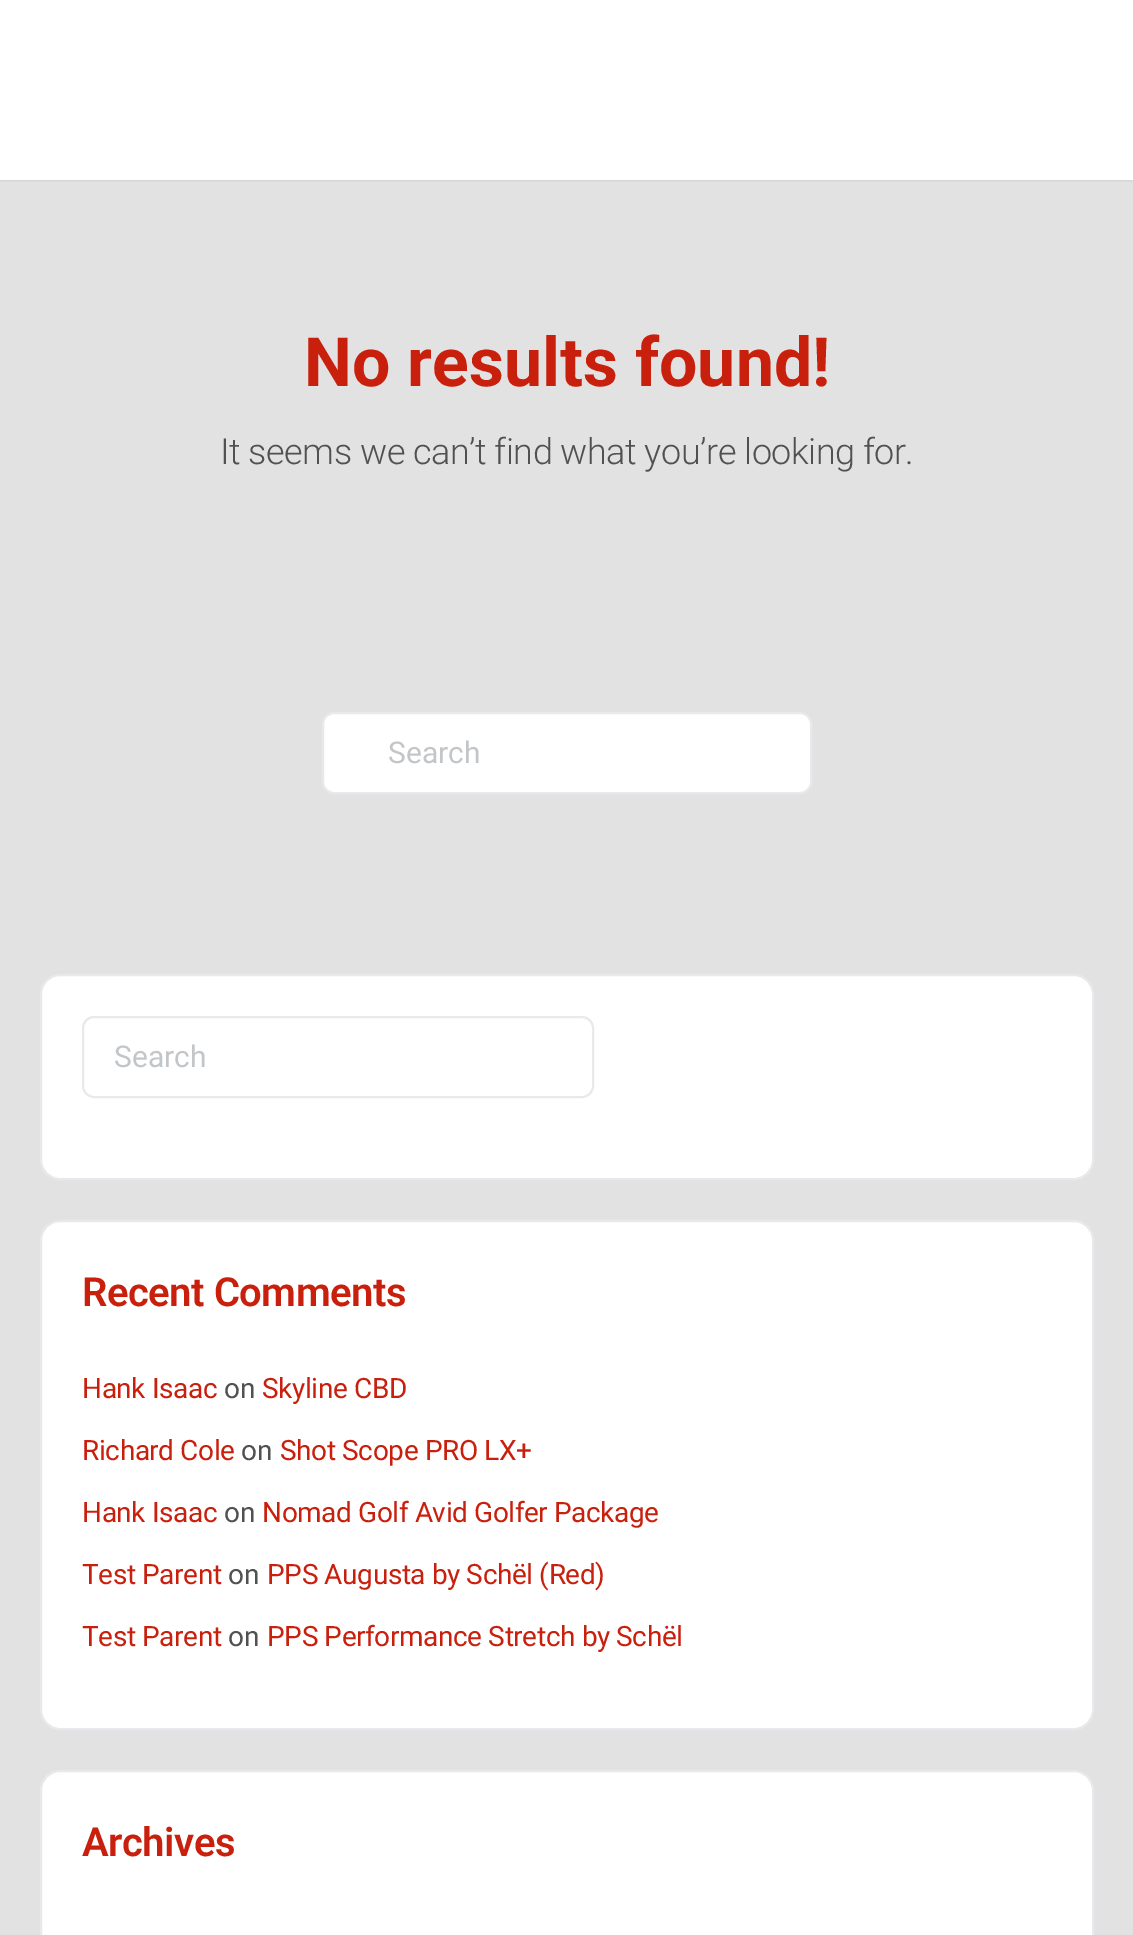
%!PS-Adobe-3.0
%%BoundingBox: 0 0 1133 1935
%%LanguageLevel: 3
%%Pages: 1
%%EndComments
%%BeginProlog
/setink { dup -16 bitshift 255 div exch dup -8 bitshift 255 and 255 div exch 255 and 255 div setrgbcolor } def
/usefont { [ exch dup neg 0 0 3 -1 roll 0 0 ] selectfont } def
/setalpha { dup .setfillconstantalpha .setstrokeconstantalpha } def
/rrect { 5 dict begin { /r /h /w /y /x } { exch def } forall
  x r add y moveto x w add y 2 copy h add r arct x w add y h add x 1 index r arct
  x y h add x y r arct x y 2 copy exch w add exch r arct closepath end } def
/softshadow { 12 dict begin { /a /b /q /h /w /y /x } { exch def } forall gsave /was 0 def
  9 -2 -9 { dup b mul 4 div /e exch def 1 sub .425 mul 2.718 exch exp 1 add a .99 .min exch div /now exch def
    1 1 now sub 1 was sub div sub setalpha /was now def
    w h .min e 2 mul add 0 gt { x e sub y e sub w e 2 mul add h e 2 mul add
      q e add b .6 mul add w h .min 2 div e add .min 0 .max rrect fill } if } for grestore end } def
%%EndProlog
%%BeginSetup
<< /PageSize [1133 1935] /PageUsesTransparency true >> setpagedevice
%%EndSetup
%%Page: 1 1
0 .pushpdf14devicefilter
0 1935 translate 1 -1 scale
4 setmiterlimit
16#E2E2E2 setink
0 0 1133 1935 rectfill
16#41476C setink
0 0 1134 180 0 1 0.15 softshadow
0.05 setalpha
16#8B8D9D setink
0 180 1133 2 rectfill
1 setalpha
16#FFFFFF setink
0 0 1133 180 rectfill
/Roboto-Bold 68 usefont
16#C9200D setink
304 386 moveto (No results found!) show
/Roboto-Light 36 usefont
16#515151 setink
220 464 moveto -0.5 0 (It seems we can’t find what you’re looking for.) ashow
16#FFFFFF setink
323 713 488 80 11 rrect gsave fill grestore
16#E7E9EC setink
2 setlinewidth
stroke
/Roboto-Regular 30 usefont
16#C3C6C9 setink
388 763 moveto (Search) show
16#FFFFFF setink
41 975 1052 204 19 rrect gsave fill grestore
16#E7E9EC setink
stroke
83 1017 510 80 11 rrect stroke
16#C3C6C9 setink
114 1067 moveto (Search) show
16#FFFFFF setink
41 1221 1052 508 19 rrect gsave fill grestore
16#E7E9EC setink
stroke
/Roboto-SemiBold 40 usefont
16#C9200D setink
82 1306 moveto -0.5 0 (Recent Comments) ashow
/Roboto-Regular 28 usefont
82 1398 moveto -0.4 0 (Hank Isaac) ashow
16#515151 setink
224 1398 moveto (on) show
16#C9200D setink
262 1398 moveto -0.4 0 (Skyline CBD) ashow
82 1460 moveto -0.4 0 (Richard Cole) ashow
16#515151 setink
241 1460 moveto (on) show
16#C9200D setink
280 1460 moveto -0.4 0 (Shot Scope PRO LX+) ashow
82 1522 moveto -0.4 0 (Hank Isaac) ashow
16#515151 setink
224 1522 moveto (on) show
16#C9200D setink
262 1522 moveto -0.4 0 (Nomad Golf Avid Golfer Package) ashow
82 1584 moveto -0.4 0 (Test Parent) ashow
16#515151 setink
228 1584 moveto (on) show
16#C9200D setink
267 1584 moveto -0.4 0 (PPS Augusta by Schël \(Red\)) ashow
82 1646 moveto -0.4 0 (Test Parent) ashow
16#515151 setink
228 1646 moveto (on) show
16#C9200D setink
267 1646 moveto -0.4 0 (PPS Performance Stretch by Schël) ashow
16#FFFFFF setink
41 1771 1052 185 19 rrect gsave fill grestore
16#E7E9EC setink
stroke
/Roboto-SemiBold 40 usefont
16#C9200D setink
82 1856 moveto -0.5 0 (Archives) ashow
.poppdf14devicefilter showpage
%%EOF
